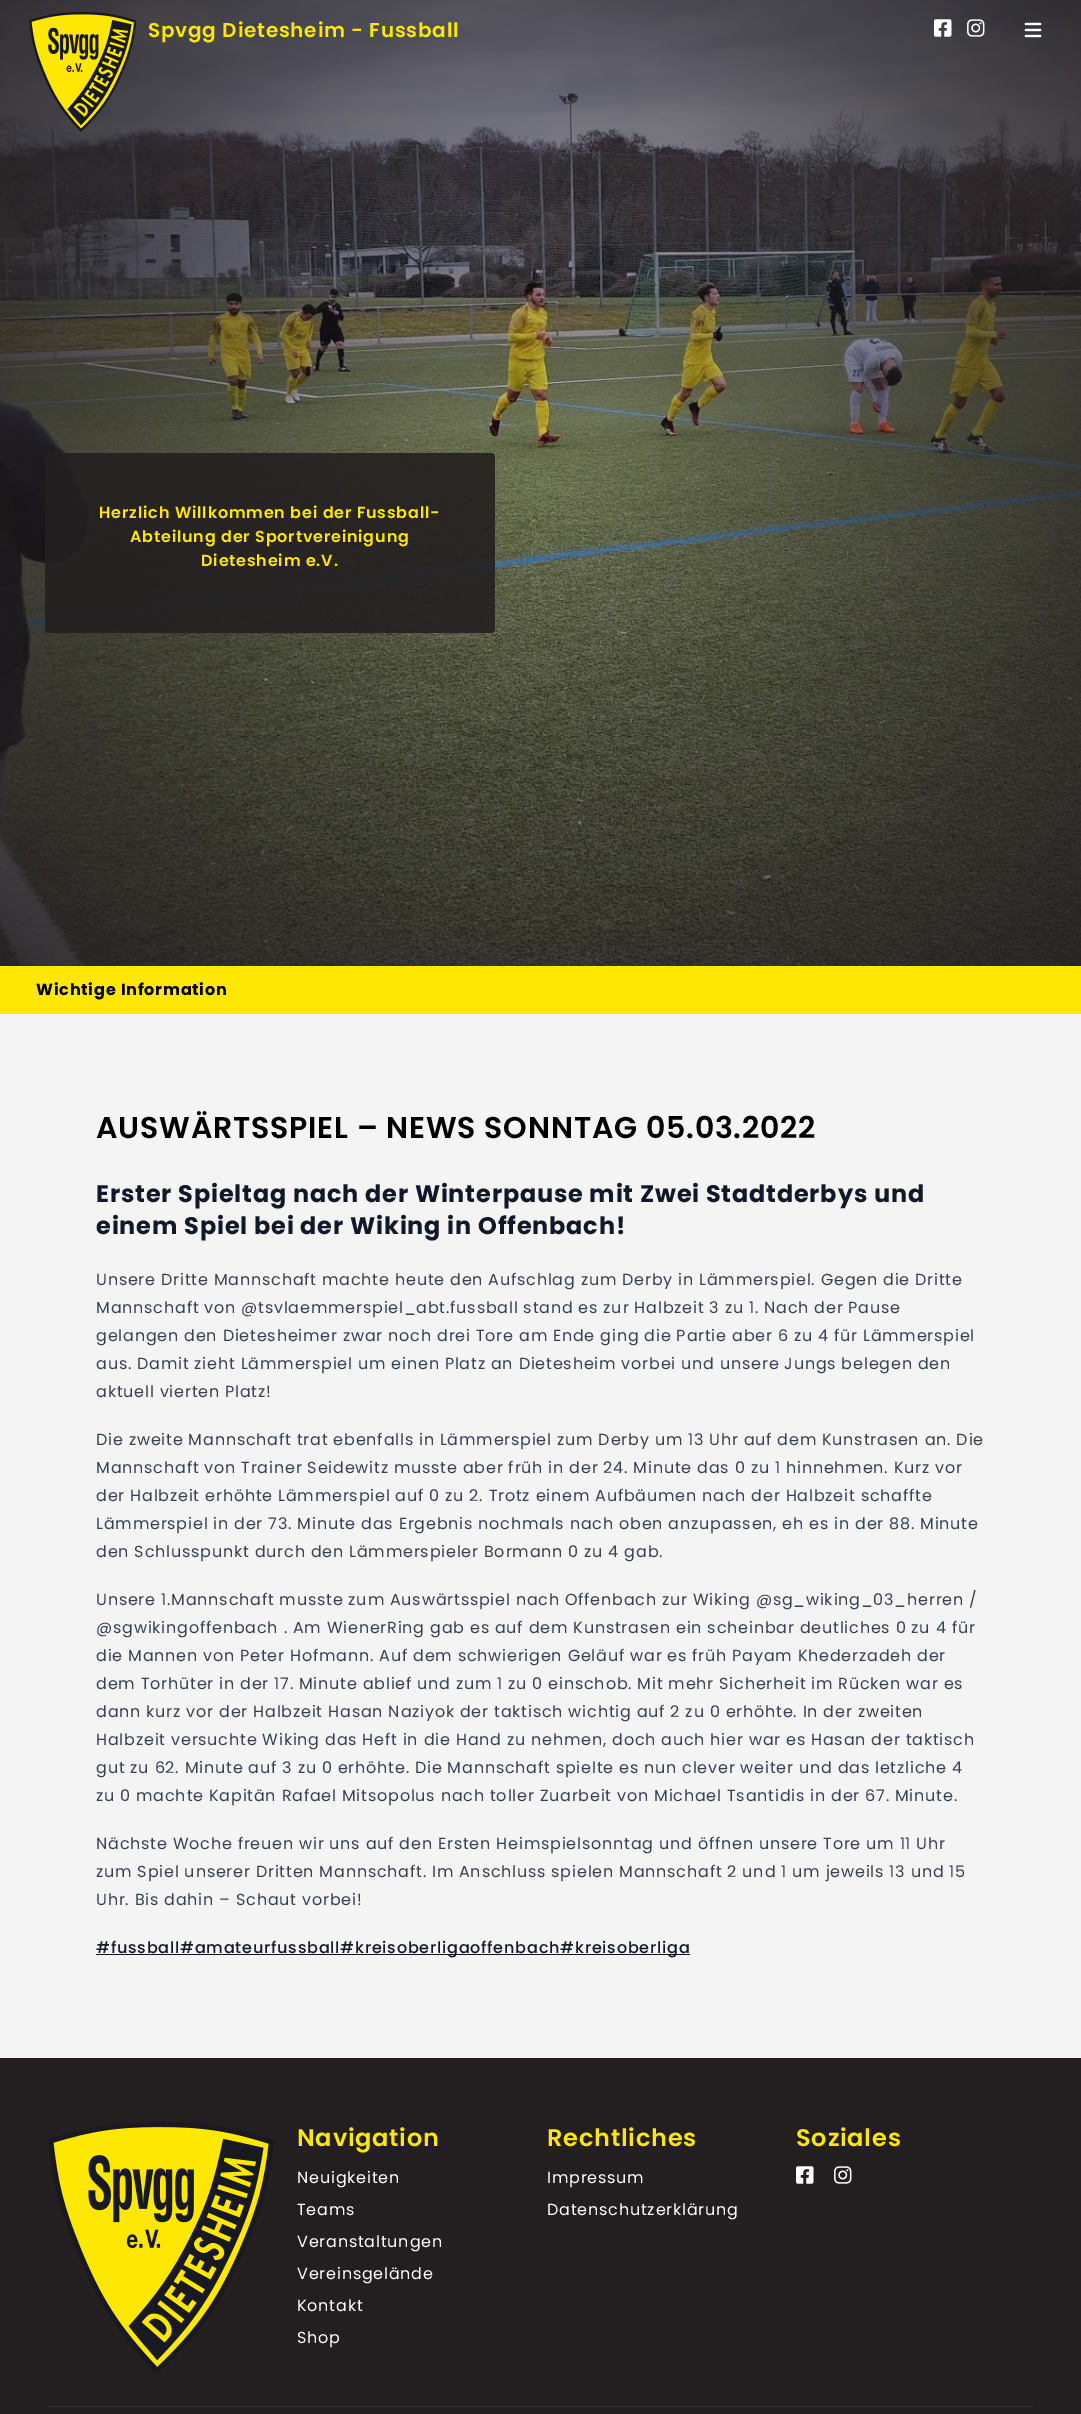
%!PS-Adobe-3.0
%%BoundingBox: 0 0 1081 2414
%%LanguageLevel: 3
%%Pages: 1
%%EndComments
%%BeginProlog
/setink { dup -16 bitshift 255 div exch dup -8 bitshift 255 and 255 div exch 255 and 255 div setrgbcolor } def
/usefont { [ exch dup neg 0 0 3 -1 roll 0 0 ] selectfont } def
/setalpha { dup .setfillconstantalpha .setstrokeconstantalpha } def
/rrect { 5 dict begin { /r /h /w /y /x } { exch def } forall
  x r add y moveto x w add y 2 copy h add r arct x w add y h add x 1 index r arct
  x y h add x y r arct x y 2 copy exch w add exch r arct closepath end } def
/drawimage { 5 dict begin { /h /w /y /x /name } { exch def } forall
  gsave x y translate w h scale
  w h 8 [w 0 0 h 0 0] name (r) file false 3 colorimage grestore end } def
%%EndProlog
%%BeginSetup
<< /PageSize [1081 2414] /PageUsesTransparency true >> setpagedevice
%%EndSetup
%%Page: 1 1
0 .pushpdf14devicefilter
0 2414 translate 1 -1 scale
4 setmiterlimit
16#FFFFFF setink
0 0 1081 2414 rectfill
(img1.raw) 0 0 1081 966 drawimage
(img2.raw) 29 12 107 120 drawimage
/Poppins-SemiBold 20 usefont
16#FEE702 setink
148 37 moveto 0.8 0 (Spvgg Dietesheim - Fussball) ashow
(img3.raw) 934 19 18 18 drawimage
(img4.raw) 967 19 18 18 drawimage
(img5.raw) 1024 22 18 16 drawimage
0.9 setalpha
16#231F20 setink
45 453 450 180 4 rrect fill
/Poppins-SemiBold 16 usefont
1 setalpha
16#FEE702 setink
99 518 moveto 0.8 0 (Herzlich Willkommen bei der Fussball-) ashow
130 542 moveto 0.8 0 (Abteilung der Sportvereinigung) ashow
201 566 moveto 0.8 0 (Dietesheim e.V.) ashow
0 966 1081 48 rectfill
/Poppins-Bold 16 usefont
16#000000 setink
36 995 moveto 0.8 0 (Wichtige Information) ashow
16#F4F4F4 setink
0 1014 1081 1044 rectfill
/Poppins-SemiBold 30 usefont
16#000000 setink
96 1138 moveto 0.8 0 (AUSWÄRTSSPIEL – NEWS SONNTAG 05.03.2022) ashow
/Poppins-Bold 24 usefont
16#111827 setink
96 1202 moveto 0.8 0 (Erster Spieltag nach der Winterpause mit Zwei Stadtderbys und) ashow
96 1234 moveto 0.8 0 (einem Spiel bei der Wiking in Offenbach!) ashow
/Poppins-Regular 16 usefont
16#374151 setink
96 1285 moveto 0.8 0 (Unsere Dritte Mannschaft machte heute den Aufschlag zum Derby in Lämmerspiel. Gegen die Dritte) ashow
96 1313 moveto 0.8 0 (Mannschaft von @tsvlaemmerspiel_abt.fussball stand es zur Halbzeit 3 zu 1. Nach der Pause) ashow
96 1341 moveto 0.8 0 (gelangen den Dietesheimer zwar noch drei Tore am Ende ging die Partie aber 6 zu 4 für Lämmerspiel) ashow
96 1369 moveto 0.8 0 (aus. Damit zieht Lämmerspiel um einen Platz an Dietesheim vorbei und unsere Jungs belegen den) ashow
96 1397 moveto 0.8 0 (aktuell vierten Platz!) ashow
96 1445 moveto 0.8 0 (Die zweite Mannschaft trat ebenfalls in Lämmerspiel zum Derby um 13 Uhr auf dem Kunstrasen an. Die) ashow
96 1473 moveto 0.8 0 (Mannschaft von Trainer Seidewitz musste aber früh in der 24. Minute das 0 zu 1 hinnehmen. Kurz vor) ashow
96 1501 moveto 0.8 0 (der Halbzeit erhöhte Lämmerspiel auf 0 zu 2. Trotz einem Aufbäumen nach der Halbzeit schaffte) ashow
96 1529 moveto 0.8 0 (Lämmerspiel in der 73. Minute das Ergebnis nochmals nach oben anzupassen, eh es in der 88. Minute) ashow
96 1557 moveto 0.8 0 (den Schlusspunkt durch den Lämmerspieler Bormann 0 zu 4 gab.) ashow
96 1605 moveto 0.8 0 (Unsere 1.Mannschaft musste zum Auswärtsspiel nach Offenbach zur Wiking @sg_wiking_03_herren /) ashow
96 1633 moveto 0.8 0 (@sgwikingoffenbach . Am WienerRing gab es auf dem Kunstrasen ein scheinbar deutliches 0 zu 4 für) ashow
96 1661 moveto 0.8 0 (die Mannen von Peter Hofmann. Auf dem schwierigen Geläuf war es früh Payam Khederzadeh der) ashow
96 1689 moveto 0.8 0 (dem Torhüter in der 17. Minute ablief und zum 1 zu 0 einschob. Mit mehr Sicherheit im Rücken war es) ashow
96 1717 moveto 0.8 0 (dann kurz vor der Halbzeit Hasan Naziyok der taktisch wichtig auf 2 zu 0 erhöhte. In der zweiten) ashow
96 1745 moveto 0.8 0 (Halbzeit versuchte Wiking das Heft in die Hand zu nehmen, doch auch hier war es Hasan der taktisch) ashow
96 1773 moveto 0.8 0 (gut zu 62. Minute auf 3 zu 0 erhöhte. Die Mannschaft spielte es nun clever weiter und das letzliche 4) ashow
96 1801 moveto 0.8 0 (zu 0 machte Kapitän Rafael Mitsopolus nach toller Zuarbeit von Michael Tsantidis in der 67. Minute.) ashow
96 1849 moveto 0.8 0 (Nächste Woche freuen wir uns auf den Ersten Heimspielsonntag und öffnen unsere Tore um 11 Uhr) ashow
96 1877 moveto 0.8 0 (zum Spiel unserer Dritten Mannschaft. Im Anschluss spielen Mannschaft 2 und 1 um jeweils 13 und 15) ashow
96 1905 moveto 0.8 0 (Uhr. Bis dahin – Schaut vorbei!) ashow
16#111827 setink
96 1954 594 1 rectfill
/Poppins-Medium 16 usefont
96 1953 moveto 0.8 0 (#fussball#amateurfussball#kreisoberligaoffenbach#kreisoberliga) ashow
16#231F20 setink
0 2058 1081 356 rectfill
(img6.raw) 48 2122 226 252 drawimage
/Poppins-SemiBold 24 usefont
16#FEE702 setink
297 2146 moveto 0.8 0 (Navigation) ashow
/Poppins-Regular 16 usefont
16#FFFFFF setink
297 2183 moveto 0.8 0 (Neuigkeiten) ashow
297 2215 moveto 0.8 0 (Teams) ashow
297 2247 moveto 0.8 0 (Veranstaltungen) ashow
297 2279 moveto 0.8 0 (Vereinsgelände) ashow
297 2311 moveto 0.8 0 (Kontakt) ashow
297 2343 moveto 0.8 0 (Shop) ashow
/Poppins-SemiBold 24 usefont
16#FEE702 setink
547 2146 moveto 0.8 0 (Rechtliches) ashow
/Poppins-Regular 16 usefont
16#FFFFFF setink
547 2183 moveto 0.8 0 (Impressum) ashow
547 2215 moveto 0.8 0 (Datenschutzerklärung) ashow
/Poppins-SemiBold 24 usefont
16#FEE702 setink
796 2146 moveto 0.8 0 (Soziales) ashow
(img7.raw) 796 2166 18 18 drawimage
(img8.raw) 834 2166 18 18 drawimage
16#39331D setink
48 2406 985 1 rectfill
.poppdf14devicefilter showpage
%%EOF
